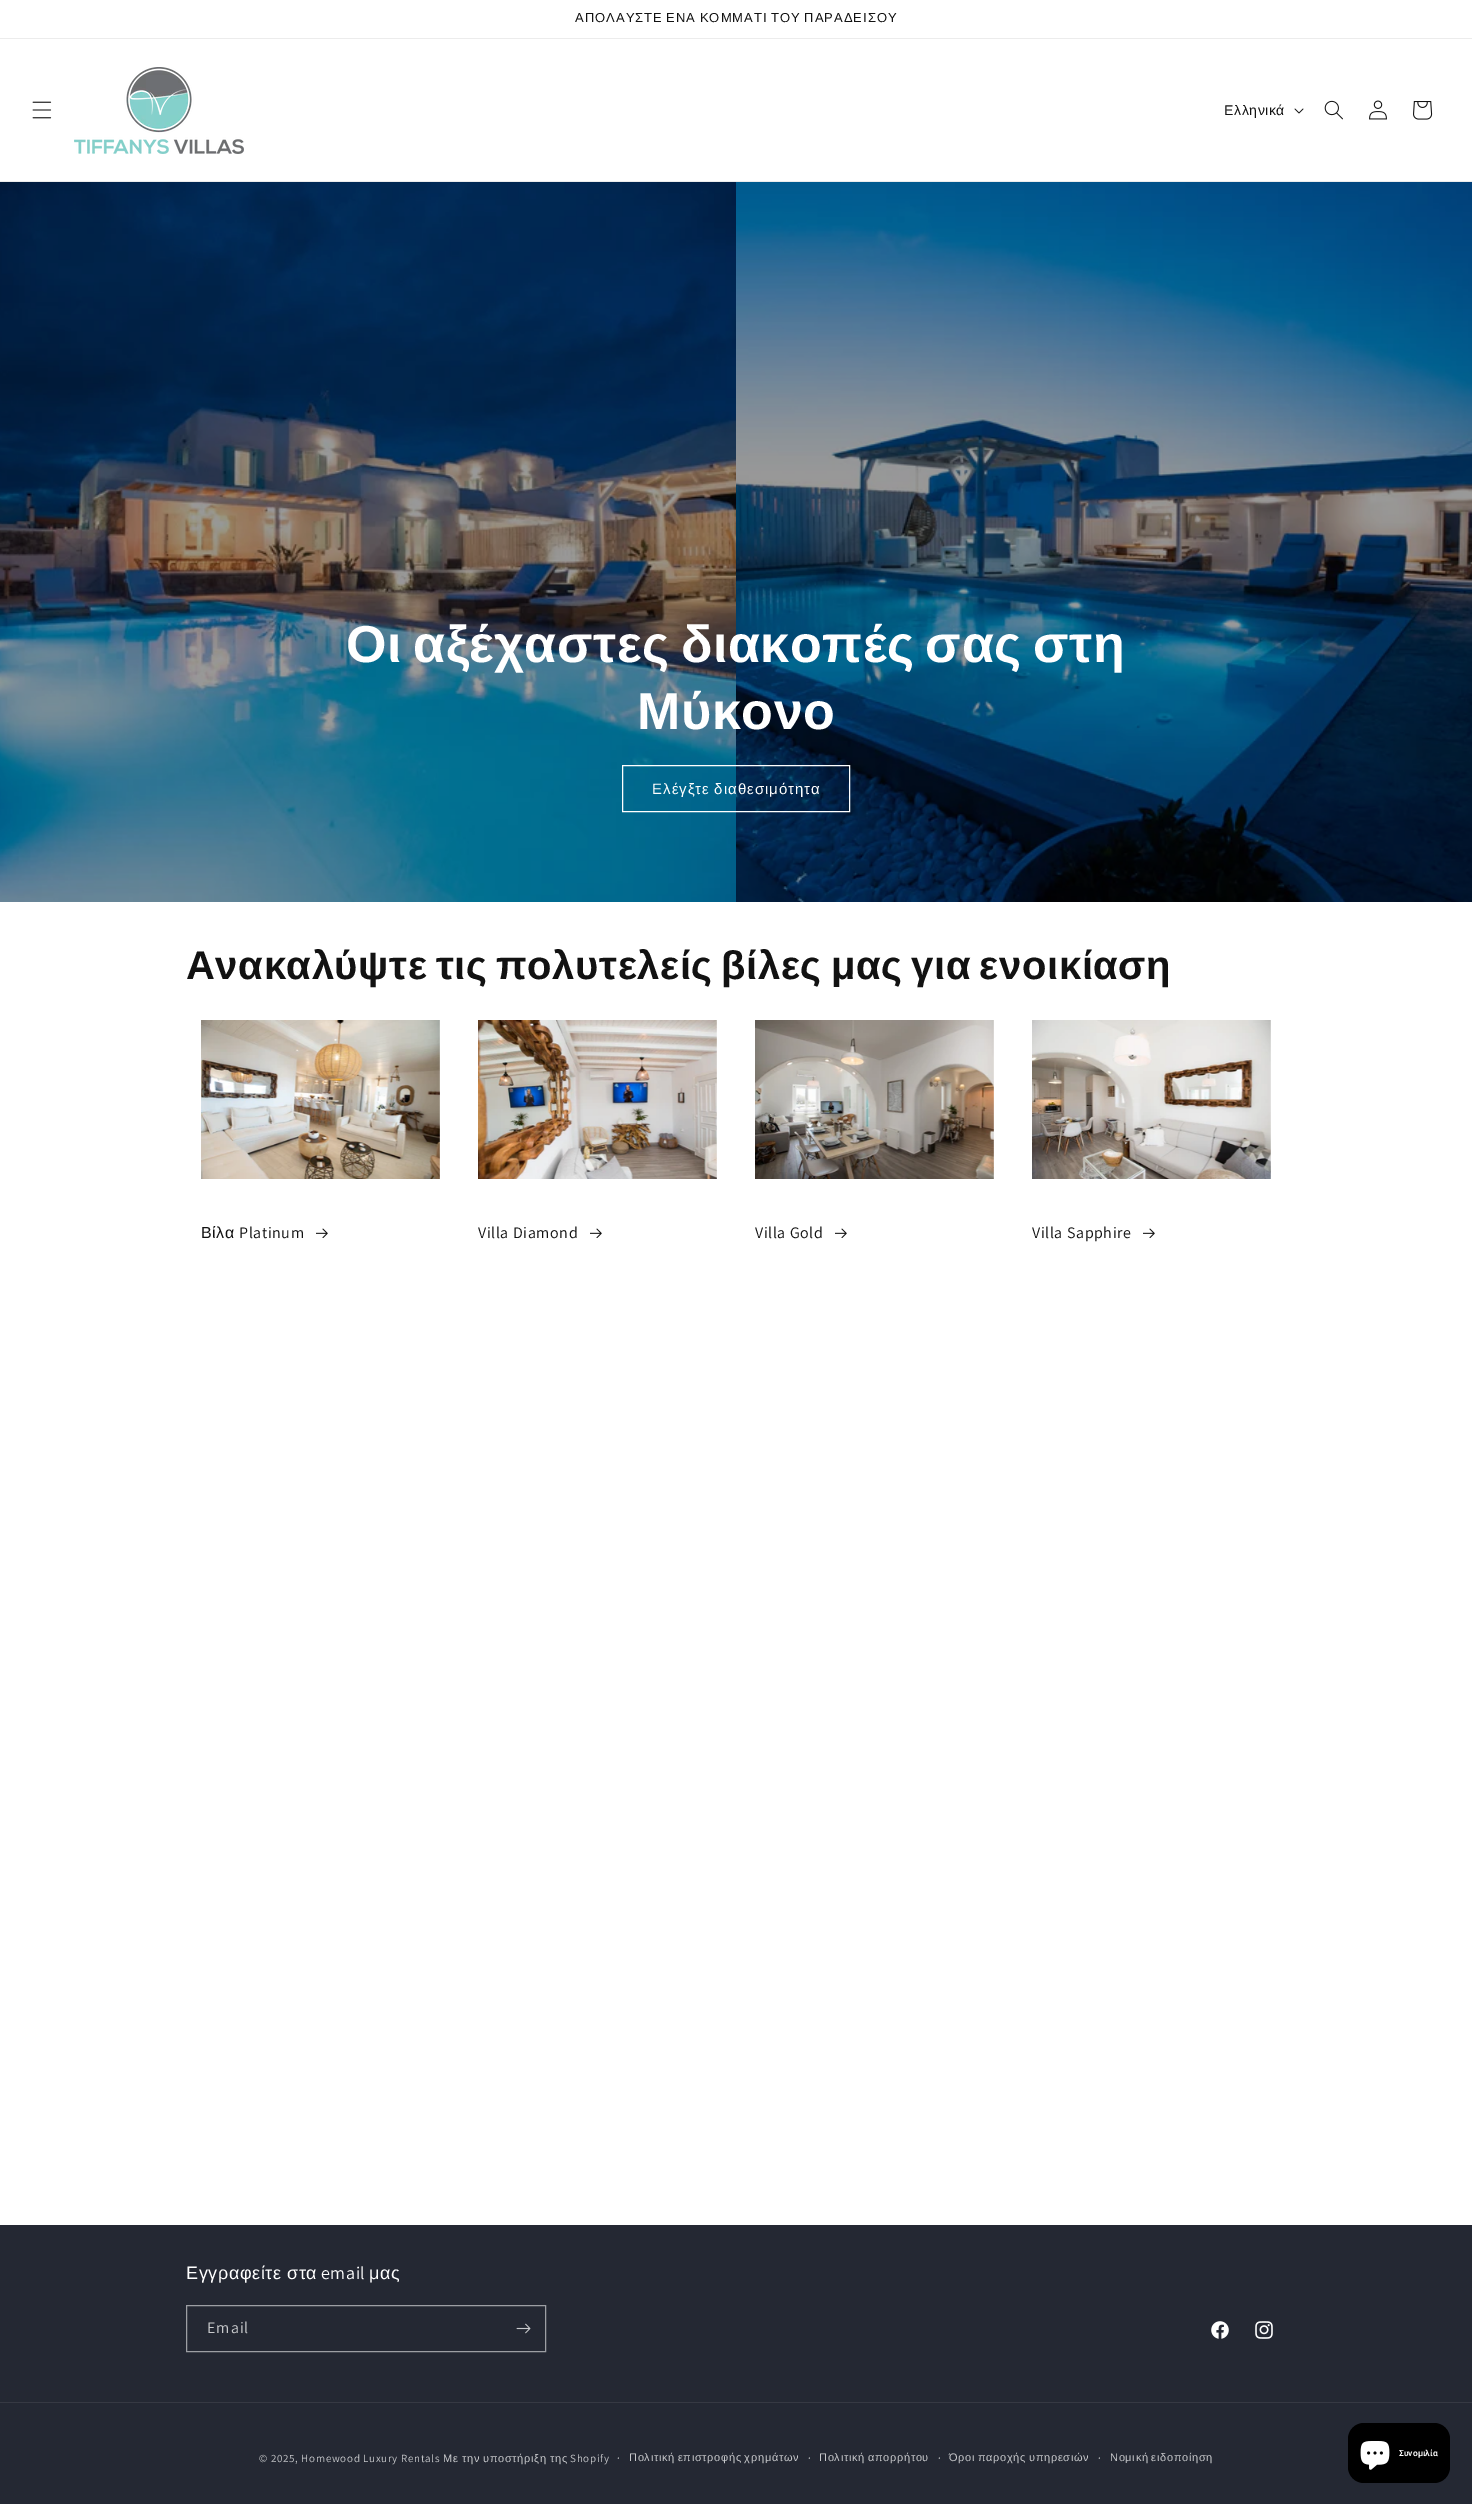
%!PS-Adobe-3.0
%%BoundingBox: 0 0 1472 2504
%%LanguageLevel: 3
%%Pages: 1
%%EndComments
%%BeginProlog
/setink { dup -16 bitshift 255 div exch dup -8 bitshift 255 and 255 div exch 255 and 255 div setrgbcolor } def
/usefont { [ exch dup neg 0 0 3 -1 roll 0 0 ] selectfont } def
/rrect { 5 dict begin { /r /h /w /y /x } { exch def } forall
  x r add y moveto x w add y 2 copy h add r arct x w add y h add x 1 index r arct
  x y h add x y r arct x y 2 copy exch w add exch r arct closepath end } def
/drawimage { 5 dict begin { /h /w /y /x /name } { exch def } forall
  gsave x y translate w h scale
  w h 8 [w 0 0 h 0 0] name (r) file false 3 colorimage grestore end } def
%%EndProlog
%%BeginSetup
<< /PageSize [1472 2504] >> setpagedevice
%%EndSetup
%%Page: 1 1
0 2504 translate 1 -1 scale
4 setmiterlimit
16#FFFFFF setink
0 0 1472 2504 rectfill
16#ECECEC setink
0 38 1472 1 rectfill
/LiberationSans-Regular 13 usefont
16#121212 setink
575 22 moveto -1 0 32 1 0 (ΑΠΟΛΑΥΣΤΕ ΕΝΑ ΚΟΜΜΑΤΙ ΤΟΥ ΠΑΡΑΔΕΙΣΟΥ) awidthshow
16#ECECEC setink
0 181 1472 1 rectfill
(img1.raw) 32 101 20 18 drawimage
(img2.raw) 74 67 170 87 drawimage
/LiberationSans-Regular 14 usefont
16#121212 setink
1224 115 moveto 0.6 0 (Ελληνικά) ashow
(img3.raw) 1294 108 10 6 drawimage
(img4.raw) 1324 100 19 20 drawimage
(img5.raw) 1369 100 18 20 drawimage
(img6.raw) 1413 101 20 19 drawimage
(img7.raw) 0 182 736 720 drawimage
(img8.raw) 736 182 736 720 drawimage
/LiberationSans-Bold 52 usefont
16#FFFFFF setink
346 662 moveto -4 0 32 0.6 0 (Οι αξέχαστες διακοπές σας στη) awidthshow
637 729 moveto 0.6 0 (Μύκονο) ashow
622.5 765.5 227 46 rectstroke
/LiberationSans-Regular 15 usefont
652 794 moveto -1 0 32 1 0 (Ελέγξτε διαθεσιμότητα) awidthshow
/LiberationSans-Bold 40 usefont
16#121212 setink
186 979 moveto -3 0 32 0.6 0 (Ανακαλύψτε τις πολυτελείς βίλες μας για ενοικίαση) awidthshow
(img9.raw) 201 1020 239 159 drawimage
/LiberationSans-Regular 16 usefont
201 1238 moveto 0.6 0 (Βίλα) ashow
/Assistant-Regular 16 usefont
239 1238 moveto 0.6 0 (Platinum) ashow
(img10.raw) 316 1228 12 10 drawimage
(img11.raw) 478 1020 239 159 drawimage
478 1238 moveto 0.6 0 (Villa Diamond) ashow
(img10.raw) 590 1228 12 10 drawimage
(img12.raw) 755 1020 239 159 drawimage
755 1238 moveto 0.6 0 (Villa Gold) ashow
(img10.raw) 835 1228 12 10 drawimage
(img13.raw) 1032 1020 239 159 drawimage
1032 1238 moveto 0.6 0 (Villa Sapphire) ashow
(img10.raw) 1143 1228 12 10 drawimage
16#242833 setink
0 2225 1472 279 rectfill
/LiberationSans-Regular 18 usefont
16#FFFFFF setink
186 2279 moveto 0.6 0 (Εγγραφείτε στα) ashow
/Assistant-Regular 18 usefont
321 2279 moveto 0.6 0 (email) ashow
/LiberationSans-Regular 18 usefont
369 2279 moveto 0.6 0 (μας) ashow
16#9C9EA3 setink
186.5 2305.5 359 46 rectstroke
/Assistant-Regular 16 usefont
16#C8C9CC setink
207 2333 moveto 1 0 (Email) ashow
(img14.raw) 516 2323 15 11 drawimage
(img15.raw) 1211 2321 18 18 drawimage
(img16.raw) 1255 2321 18 18 drawimage
16#363943 setink
0 2402 1472 1 rectfill
/Assistant-Regular 11 usefont
16#C8C9CC setink
259 2462 moveto 0.7 0 (© 2025, Homewood Luxury Rentals) ashow
/LiberationSans-Regular 11 usefont
443 2462 moveto -0.5 0 32 0.7 0 (Με την υποστήριξη της) awidthshow
/Assistant-Regular 11 usefont
570 2462 moveto 0.7 0 (Shopify) ashow
/Assistant-Regular 12 usefont
617 2462 moveto 0.7 0 (·) ashow
/LiberationSans-Regular 11 usefont
629 2461 moveto -1 0 32 0.7 0 (Πολιτική επιστροφής χρημάτων) awidthshow
/Assistant-Regular 12 usefont
808 2462 moveto 0.7 0 (·) ashow
/LiberationSans-Regular 11 usefont
819 2461 moveto -1 0 32 0.7 0 (Πολιτική απορρήτου) awidthshow
/Assistant-Regular 12 usefont
938 2462 moveto 0.7 0 (·) ashow
/LiberationSans-Regular 11 usefont
949 2461 moveto -1 0 32 0.7 0 (Όροι παροχής υπηρεσιών) awidthshow
/Assistant-Regular 12 usefont
1098 2462 moveto 0.7 0 (·) ashow
/LiberationSans-Regular 11 usefont
1110 2461 moveto -1 0 32 0.7 0 (Νομική ειδοποίηση) awidthshow
16#000000 setink
1348 2423 102 60 16 rrect fill
(img17.raw) 1360 2441 30 29 drawimage
/Roboto-SemiBold 8.5 usefont
16#FFFFFF setink
1399 2456 moveto (Συνομιλία) show
showpage
%%EOF
